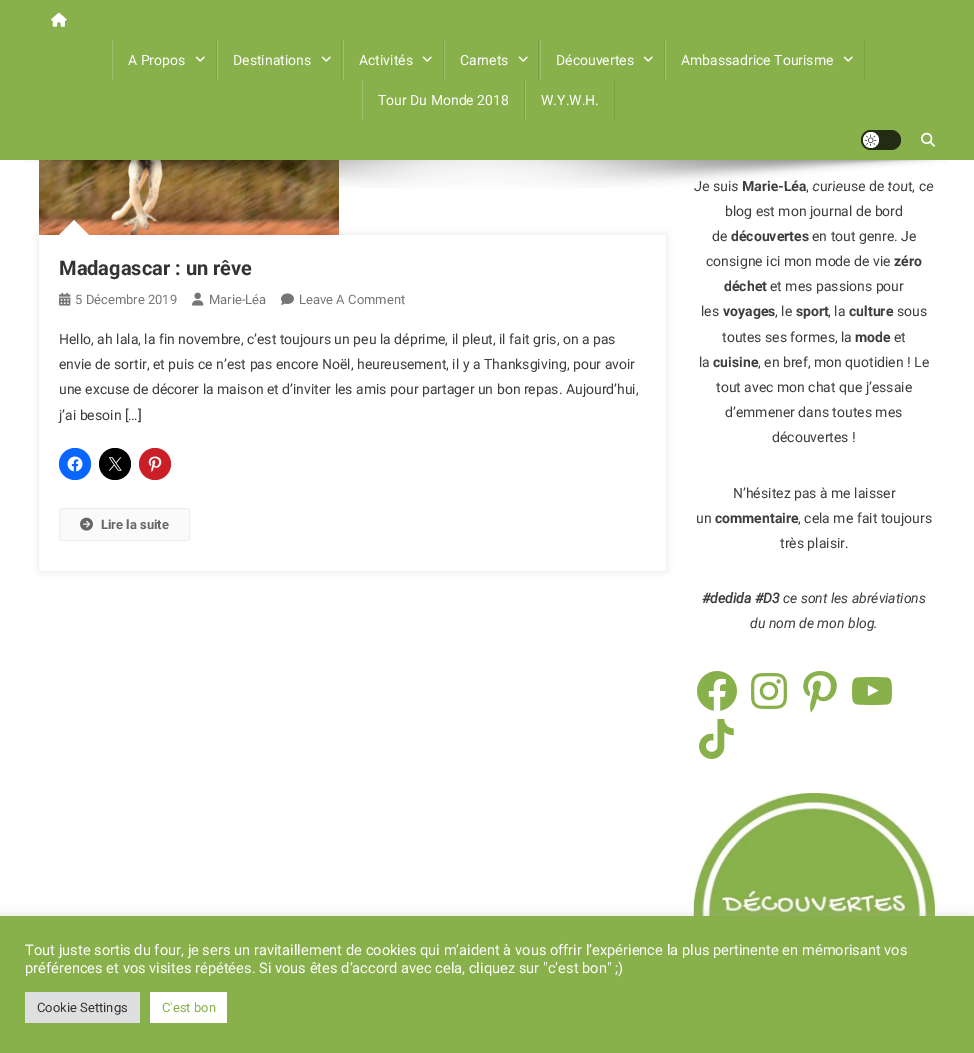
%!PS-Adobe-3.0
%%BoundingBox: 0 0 974 1053
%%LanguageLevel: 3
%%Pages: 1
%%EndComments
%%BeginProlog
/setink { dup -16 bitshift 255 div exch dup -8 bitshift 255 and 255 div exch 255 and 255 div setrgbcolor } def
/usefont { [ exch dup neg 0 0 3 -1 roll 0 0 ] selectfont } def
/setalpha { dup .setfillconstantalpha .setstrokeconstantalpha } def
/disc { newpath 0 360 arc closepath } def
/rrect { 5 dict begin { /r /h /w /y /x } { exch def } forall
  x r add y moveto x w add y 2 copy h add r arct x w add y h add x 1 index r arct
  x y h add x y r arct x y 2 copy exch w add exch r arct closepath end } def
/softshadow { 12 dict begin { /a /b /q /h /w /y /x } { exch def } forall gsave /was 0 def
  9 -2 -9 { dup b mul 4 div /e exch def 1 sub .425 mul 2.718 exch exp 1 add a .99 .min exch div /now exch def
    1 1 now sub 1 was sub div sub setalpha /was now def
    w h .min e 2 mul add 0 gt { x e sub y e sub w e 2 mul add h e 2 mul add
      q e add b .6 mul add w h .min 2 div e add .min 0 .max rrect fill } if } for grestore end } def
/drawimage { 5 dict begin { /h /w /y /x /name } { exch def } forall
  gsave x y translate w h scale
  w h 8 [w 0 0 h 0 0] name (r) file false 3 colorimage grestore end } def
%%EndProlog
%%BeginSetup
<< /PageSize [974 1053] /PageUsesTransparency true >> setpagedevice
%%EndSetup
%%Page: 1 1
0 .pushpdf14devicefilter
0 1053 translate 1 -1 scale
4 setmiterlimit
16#FFFFFF setink
0 0 974 1053 rectfill
16#88B04B setink
0 0 974 160 rectfill
(img1.raw) 51 12 16 15 drawimage
16#7DA245 setink
216 40 1 40 rectfill
16#A0C06F setink
112 40 1 40 rectfill
/Roboto-Regular 14 usefont
16#FFFFFF setink
128 65 moveto (A Propos) show
(img2.raw) 195 56 10 6 drawimage
16#7DA245 setink
341 40 1 40 rectfill
16#A0C06F setink
217 40 1 40 rectfill
16#FFFFFF setink
233 65 moveto (Destinations) show
(img2.raw) 321 56 10 6 drawimage
16#7DA245 setink
443 40 1 40 rectfill
16#A0C06F setink
343 40 1 40 rectfill
16#FFFFFF setink
359 65 moveto (Activités) show
(img2.raw) 422 56 10 6 drawimage
16#7DA245 setink
538 40 1 40 rectfill
16#A0C06F setink
444 40 1 40 rectfill
16#FFFFFF setink
460 65 moveto (Carnets) show
(img2.raw) 518 56 10 6 drawimage
16#7DA245 setink
664 40 1 40 rectfill
16#A0C06F setink
540 40 1 40 rectfill
16#FFFFFF setink
556 65 moveto (Découvertes) show
(img2.raw) 643 56 10 6 drawimage
16#7DA245 setink
864 40 1 40 rectfill
16#A0C06F setink
665 40 1 40 rectfill
16#FFFFFF setink
681 65 moveto (Ambassadrice Tourisme) show
(img2.raw) 843 56 10 6 drawimage
16#7DA245 setink
524 80 1 40 rectfill
16#A0C06F setink
362 80 1 40 rectfill
16#FFFFFF setink
378 105 moveto (Tour Du Monde 2018) show
16#7DA245 setink
614 80 1 40 rectfill
16#A0C06F setink
525 80 1 40 rectfill
16#FFFFFF setink
541 105 moveto (W.Y.W.H.) show
16#222C13 setink
861 130 40 20 10 rrect fill
16#FFFFFF setink
871 140 8 disc fill
(img3.raw) 865 134 12 12 drawimage
(img4.raw) 921 132 14 15 drawimage
(img6.raw) 39 160 300 75 drawimage
16#3D3D3D setink
694 191 moveto (Je suis) show
/Roboto-Bold 14 usefont
742 191 moveto (Marie-Léa) show
/Roboto-Regular 14 usefont
806 191 moveto (, curieuse de tout, ce) show
(img5.raw) 24 160 925 28 drawimage
gsave
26 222 moveto 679 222 lineto 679 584 lineto 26 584 lineto closepath 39 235 moveto 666 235 lineto 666 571 lineto 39 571 lineto closepath eoclip newpath
16#000000 setink
39 235 627 336 0 4 0.1 softshadow
grestore
16#FFFFFF setink
89 235 moveto 59 235 lineto 74 220 lineto closepath fill
/Roboto-Bold 20 usefont
16#333333 setink
59 275 moveto (Madagascar : un rêve) show
(img7.raw) 59 292 12 14 drawimage
/Roboto-Regular 13 usefont
16#767676 setink
75 304 moveto (5 Décembre 2019) show
(img8.raw) 192 292 12 14 drawimage
209 304 moveto (Marie-Léa) show
(img9.raw) 281 293 13 12 drawimage
299 304 moveto (Leave A Comment) show
/Roboto-Regular 14 usefont
16#3D3D3D setink
[
    [(Hello, ah lala, la fin novembre, c’est toujours un peu la déprime, il pleut, il fait gris, on a pas) 59 344]
    [(envie de sortir, et puis ce n’est pas encore Noël, heureusement, il y a Thanksgiving, pour avoir) 59 369]
    [(une excuse de décorer la maison et d’inviter les amis pour partager un bon repas. Aujourd’hui,) 59 394]
    [(j’ai besoin […]) 59 420]
] { aload pop moveto show } forall
16#0866FF setink
75 464 16 disc fill
(img10.raw) 67 456 16 16 drawimage
16#000000 setink
115 464 16 disc fill
(img11.raw) 108 457 14 14 drawimage
16#CA1F27 setink
155 464 16 disc fill
(img12.raw) 148 456 14 16 drawimage
16#FAFAFA setink
59.5 508.5 130 32 2.5 rrect gsave fill grestore
16#EEEEEE setink
stroke
(img13.raw) 80 517 13 14 drawimage
/Roboto-Bold 13 usefont
16#666666 setink
101 529 moveto (Lire la suite) show
/Roboto-Regular 14 usefont
16#3D3D3D setink
725 216 moveto (blog est mon journal de bord) show
712 241 moveto (de) show
/Roboto-Bold 14 usefont
731 241 moveto (découvertes) show
/Roboto-Regular 14 usefont
812 241 moveto (en tout genre. Je) show
706 266 moveto (consigne ici mon mode de vie) show
/Roboto-Bold 14 usefont
894 266 moveto (zéro) show
724 291 moveto (déchet) show
/Roboto-Regular 14 usefont
770 291 moveto (et mes passions pour) show
701 316 moveto (les) show
/Roboto-Bold 14 usefont
723 316 moveto (voyages) show
/Roboto-Regular 14 usefont
775 316 moveto (, le) show
/Roboto-Bold 14 usefont
796 316 moveto (sport) show
/Roboto-Regular 14 usefont
828 316 moveto (, la) show
/Roboto-Bold 14 usefont
849 316 moveto (culture) show
/Roboto-Regular 14 usefont
897 316 moveto (sous) show
722 342 moveto (toutes ses formes, la) show
/Roboto-Bold 14 usefont
855 342 moveto (mode) show
/Roboto-Regular 14 usefont
894 342 moveto (et) show
699 367 moveto (la) show
/Roboto-Bold 14 usefont
713 367 moveto (cuisine) show
/Roboto-Regular 14 usefont
[
    [(, en bref, mon quotidien ! Le) 758 367]
    [(tout avec mon chat que j’essaie) 716 392]
    [(d’emmener dans toutes mes) 725 417]
    [(découvertes !) 772 442]
    [(N’hésitez pas à me laisser) 733 498]
    [(un) 696 523]
] { aload pop moveto show } forall
/Roboto-Bold 14 usefont
715 523 moveto (commentaire) show
/Roboto-Regular 14 usefont
798 523 moveto (, cela me fait toujours) show
780 548 moveto (très plaisir.) show
/Roboto-BoldItalic 14 usefont
702 603 moveto (#dedida #D3) show
/Roboto-Italic 14 usefont
783 603 moveto (ce sont les abréviations) show
750 628 moveto (du nom de mon blog.) show
(img14.raw) 697 671 40 40 drawimage
(img15.raw) 751 673 36 36 drawimage
(img16.raw) 803 671 34 42 drawimage
(img17.raw) 852 676 40 30 drawimage
(img18.raw) 699 719 35 40 drawimage
(img19.raw) 693 793 242 123 drawimage
16#ACABAB setink
0 915 974 137 0 5 0.3 softshadow
16#88B04B setink
0 916 974 137 rectfill
/Roboto-Regular 14.67 usefont
16#FFFFFF setink
25 955 moveto (Tout juste sortis du four, je sers un ravitaillement de cookies qui m’aident à vous offrir l’expérience la plus pertinente en mémorisant vos) show
25 973 moveto (préférences et vos visites répétées. Si vous êtes d’accord avec cela, cliquez sur "c’est bon" ;\)) show
16#DEDFE0 setink
25 992 115 31 rectfill
/Roboto-Regular 13 usefont
16#333333 setink
37 1012 moveto (Cookie Settings) show
16#FFFFFF setink
150 992 77 31 rectfill
16#88B04B setink
162 1012 moveto (C'est bon) show
.poppdf14devicefilter showpage
%%EOF
